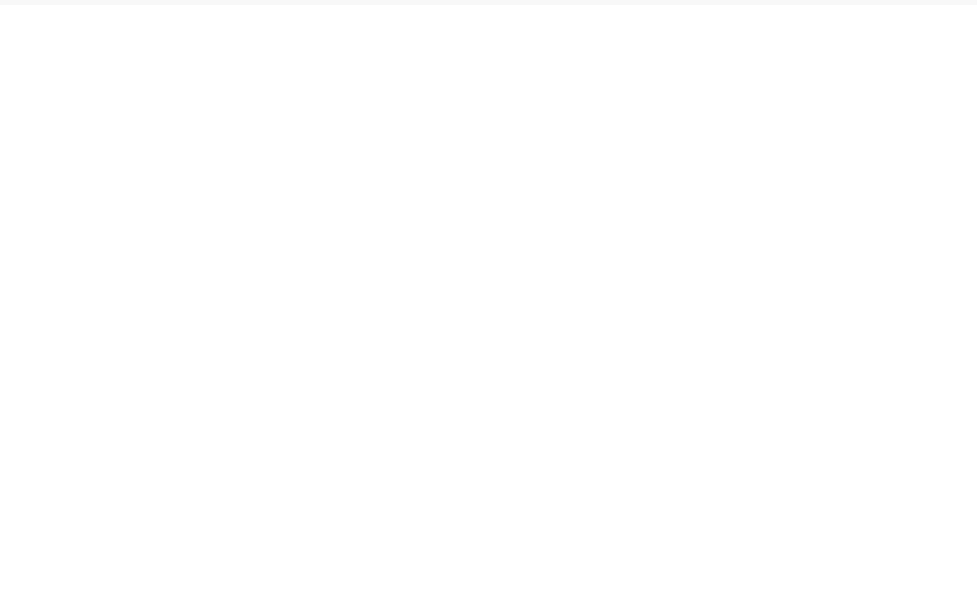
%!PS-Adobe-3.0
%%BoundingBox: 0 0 977 603
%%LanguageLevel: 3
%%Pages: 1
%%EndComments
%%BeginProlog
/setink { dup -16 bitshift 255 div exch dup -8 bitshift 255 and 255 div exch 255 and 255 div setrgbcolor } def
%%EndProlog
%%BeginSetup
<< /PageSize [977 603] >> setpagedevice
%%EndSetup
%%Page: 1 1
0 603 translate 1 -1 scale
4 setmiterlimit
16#FFFFFF setink
0 0 977 603 rectfill
16#F8F8F8 setink
0 0 977 5 rectfill
showpage
%%EOF
